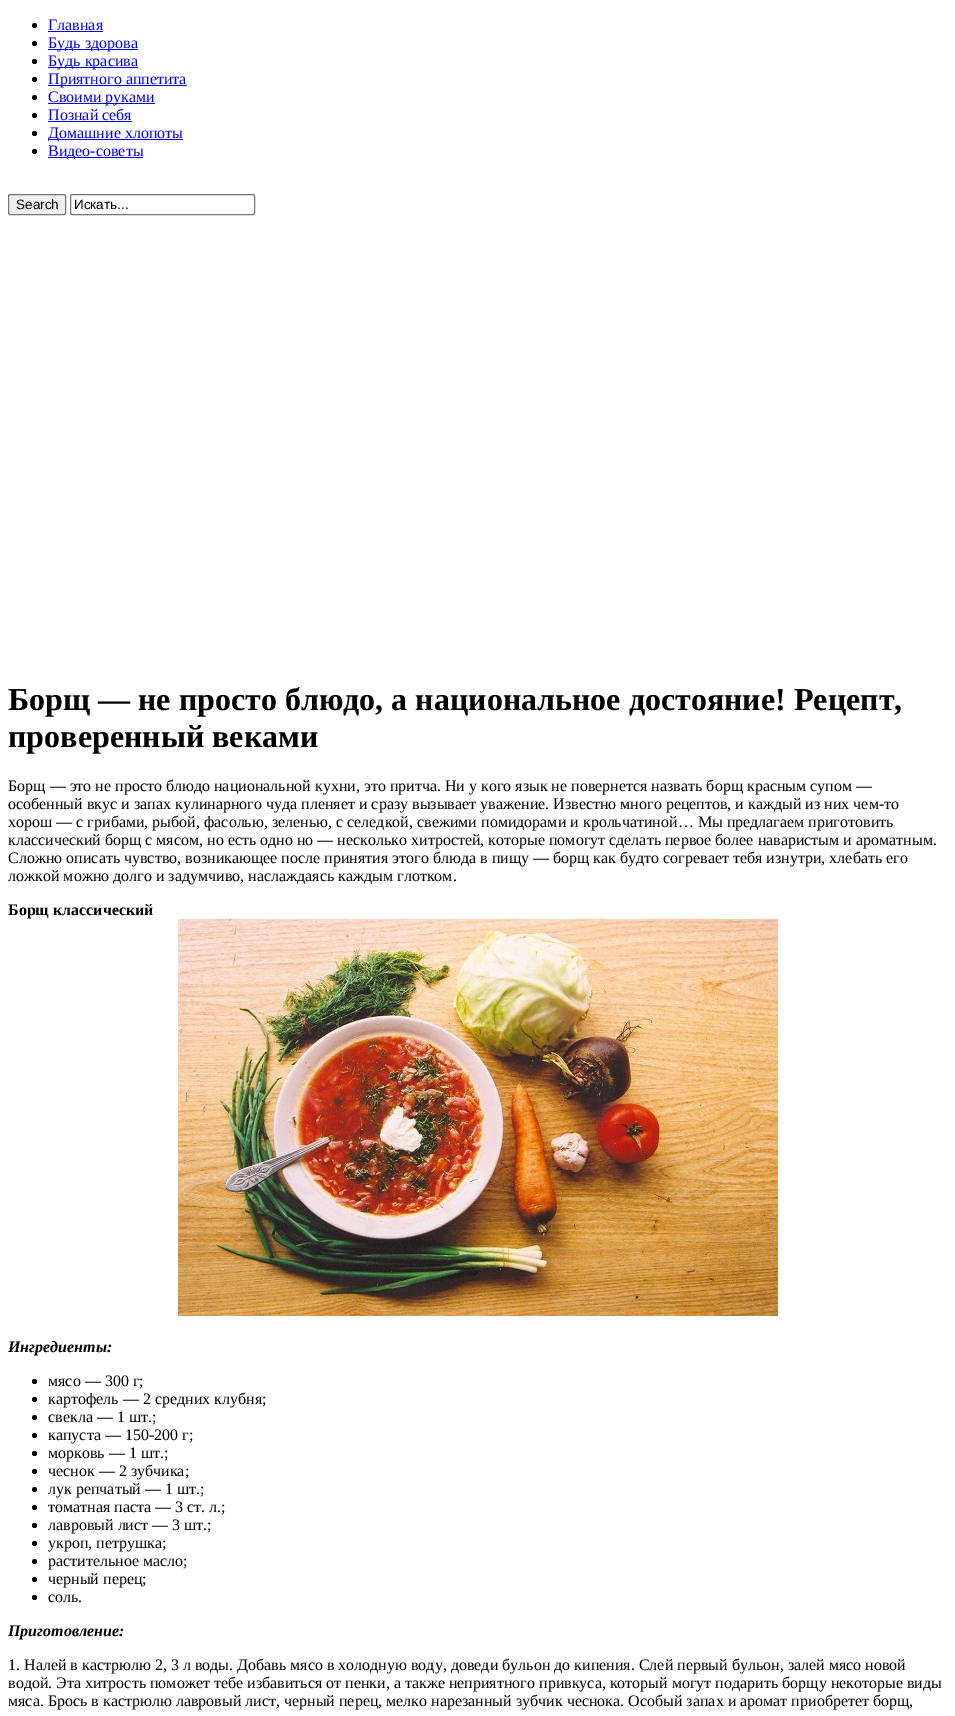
%!PS-Adobe-3.0
%%BoundingBox: 0 0 955 1716
%%LanguageLevel: 3
%%Pages: 1
%%EndComments
%%BeginProlog
/setink { dup -16 bitshift 255 div exch dup -8 bitshift 255 and 255 div exch 255 and 255 div setrgbcolor } def
/usefont { [ exch dup neg 0 0 3 -1 roll 0 0 ] selectfont } def
/disc { newpath 0 360 arc closepath } def
/rrect { 5 dict begin { /r /h /w /y /x } { exch def } forall
  x r add y moveto x w add y 2 copy h add r arct x w add y h add x 1 index r arct
  x y h add x y r arct x y 2 copy exch w add exch r arct closepath end } def
/drawimage { 5 dict begin { /h /w /y /x /name } { exch def } forall
  gsave x y translate w h scale
  w h 8 [w 0 0 h 0 0] name (r) file false 3 colorimage grestore end } def
%%EndProlog
%%BeginSetup
<< /PageSize [955 1716] >> setpagedevice
%%EndSetup
%%Page: 1 1
0 1716 translate 1 -1 scale
4 setmiterlimit
16#FFFFFF setink
0 0 955 1716 rectfill
16#000000 setink
34.5 25.5 2.5 disc fill
/LiberationSerif-Regular 16 usefont
16#0000EE setink
48 30 moveto (Главная) show
48 31 55 1 rectfill
16#000000 setink
34.5 43.5 2.5 disc fill
16#0000EE setink
48 49 90 1 rectfill
48 48 moveto (Будь здорова) show
16#000000 setink
34.5 61.5 2.5 disc fill
16#0000EE setink
48 67 90 1 rectfill
48 66 moveto (Будь красива) show
16#000000 setink
34.5 79.5 2.5 disc fill
16#0000EE setink
48 85 139 1 rectfill
48 84 moveto (Приятного аппетита) show
16#000000 setink
34.5 97.5 2.5 disc fill
16#0000EE setink
48 103 107 1 rectfill
48 102 moveto (Своими руками) show
16#000000 setink
34.5 115.5 2.5 disc fill
16#0000EE setink
48 120 moveto (Познай себя) show
48 121 84 1 rectfill
16#000000 setink
34.5 133.5 2.5 disc fill
16#0000EE setink
48 139 135 1 rectfill
48 138 moveto (Домашние хлопоты) show
16#000000 setink
34.5 151.5 2.5 disc fill
16#0000EE setink
48 157 95 1 rectfill
48 156 moveto (Видео-советы) show
16#EFEFEF setink
8.5 194.5 57 20 1.5 rrect gsave fill grestore
16#767676 setink
stroke
/LiberationSans-Regular 13.5 usefont
16#000000 setink
16 209 moveto (Search) show
16#767676 setink
70.5 194.5 184 20 1.5 rrect stroke
16#000000 setink
74 209 moveto (Искать...) show
/LiberationSerif-Bold 32 usefont
8 710 moveto (Борщ — не просто блюдо, а национальное достояние! Рецепт,) show
8 747 moveto (проверенный веками) show
/LiberationSerif-Regular 16 usefont
[
    [(Борщ — это не просто блюдо национальной кухни, это притча. Ни у кого язык не повернется назвать борщ красным супом —) 8 791]
    [(особенный вкус и запах кулинарного чуда пленяет и сразу вызывает уважение. Известно много рецептов, и каждый из них чем-то) 8 809]
    [(хорош — с грибами, рыбой, фасолью, зеленью, с селедкой, свежими помидорами и крольчатиной… Мы предлагаем приготовить) 8 827]
    [(классический борщ с мясом, но есть одно но — несколько хитростей, которые помогут сделать первое более наваристым и ароматным.) 8 845]
    [(Сложно описать чувство, возникающее после принятия этого блюда в пищу — борщ как будто согревает тебя изнутри, хлебать его) 8 863]
    [(ложкой можно долго и задумчиво, наслаждаясь каждым глотком.) 8 881]
] { aload pop moveto show } forall
/LiberationSerif-Bold 16 usefont
8 915 moveto (Борщ классический) show
(img1.raw) 178 919 600 397 drawimage
/LiberationSerif-BoldItalic 16 usefont
8 1352 moveto (Ингредиенты:) show
34.5 1381.5 2.5 disc fill
/LiberationSerif-Regular 16 usefont
48 1386 moveto (мясо — 300 г;) show
34.5 1399.5 2.5 disc fill
48 1404 moveto (картофель — 2 средних клубня;) show
34.5 1417.5 2.5 disc fill
48 1422 moveto (свекла — 1 шт.;) show
34.5 1435.5 2.5 disc fill
48 1440 moveto (капуста — 150-200 г;) show
34.5 1453.5 2.5 disc fill
48 1458 moveto (морковь — 1 шт.;) show
34.5 1471.5 2.5 disc fill
48 1476 moveto (чеснок — 2 зубчика;) show
34.5 1489.5 2.5 disc fill
48 1494 moveto (лук репчатый — 1 шт.;) show
34.5 1507.5 2.5 disc fill
48 1512 moveto (томатная паста — 3 ст. л.;) show
34.5 1525.5 2.5 disc fill
48 1530 moveto (лавровый лист — 3 шт.;) show
34.5 1543.5 2.5 disc fill
48 1548 moveto (укроп, петрушка;) show
34.5 1561.5 2.5 disc fill
48 1566 moveto (растительное масло;) show
34.5 1579.5 2.5 disc fill
48 1584 moveto (черный перец;) show
34.5 1597.5 2.5 disc fill
48 1602 moveto (соль.) show
/LiberationSerif-BoldItalic 16 usefont
8 1636 moveto (Приготовление:) show
/LiberationSerif-Regular 16 usefont
[
    [(1. Налей в кастрюлю 2, 3 л воды. Добавь мясо в холодную воду, доведи бульон до кипения. Слей первый бульон, залей мясо новой) 8 1670]
    [(водой. Эта хитрость поможет тебе избавиться от пенки, а также неприятного привкуса, который могут подарить борщу некоторые виды) 8 1688]
    [(мяса. Брось в кастрюлю лавровый лист, черный перец, мелко нарезанный зубчик чеснока. Особый запах и аромат приобретет борщ,) 8 1706]
] { aload pop moveto show } forall
showpage
%%EOF
